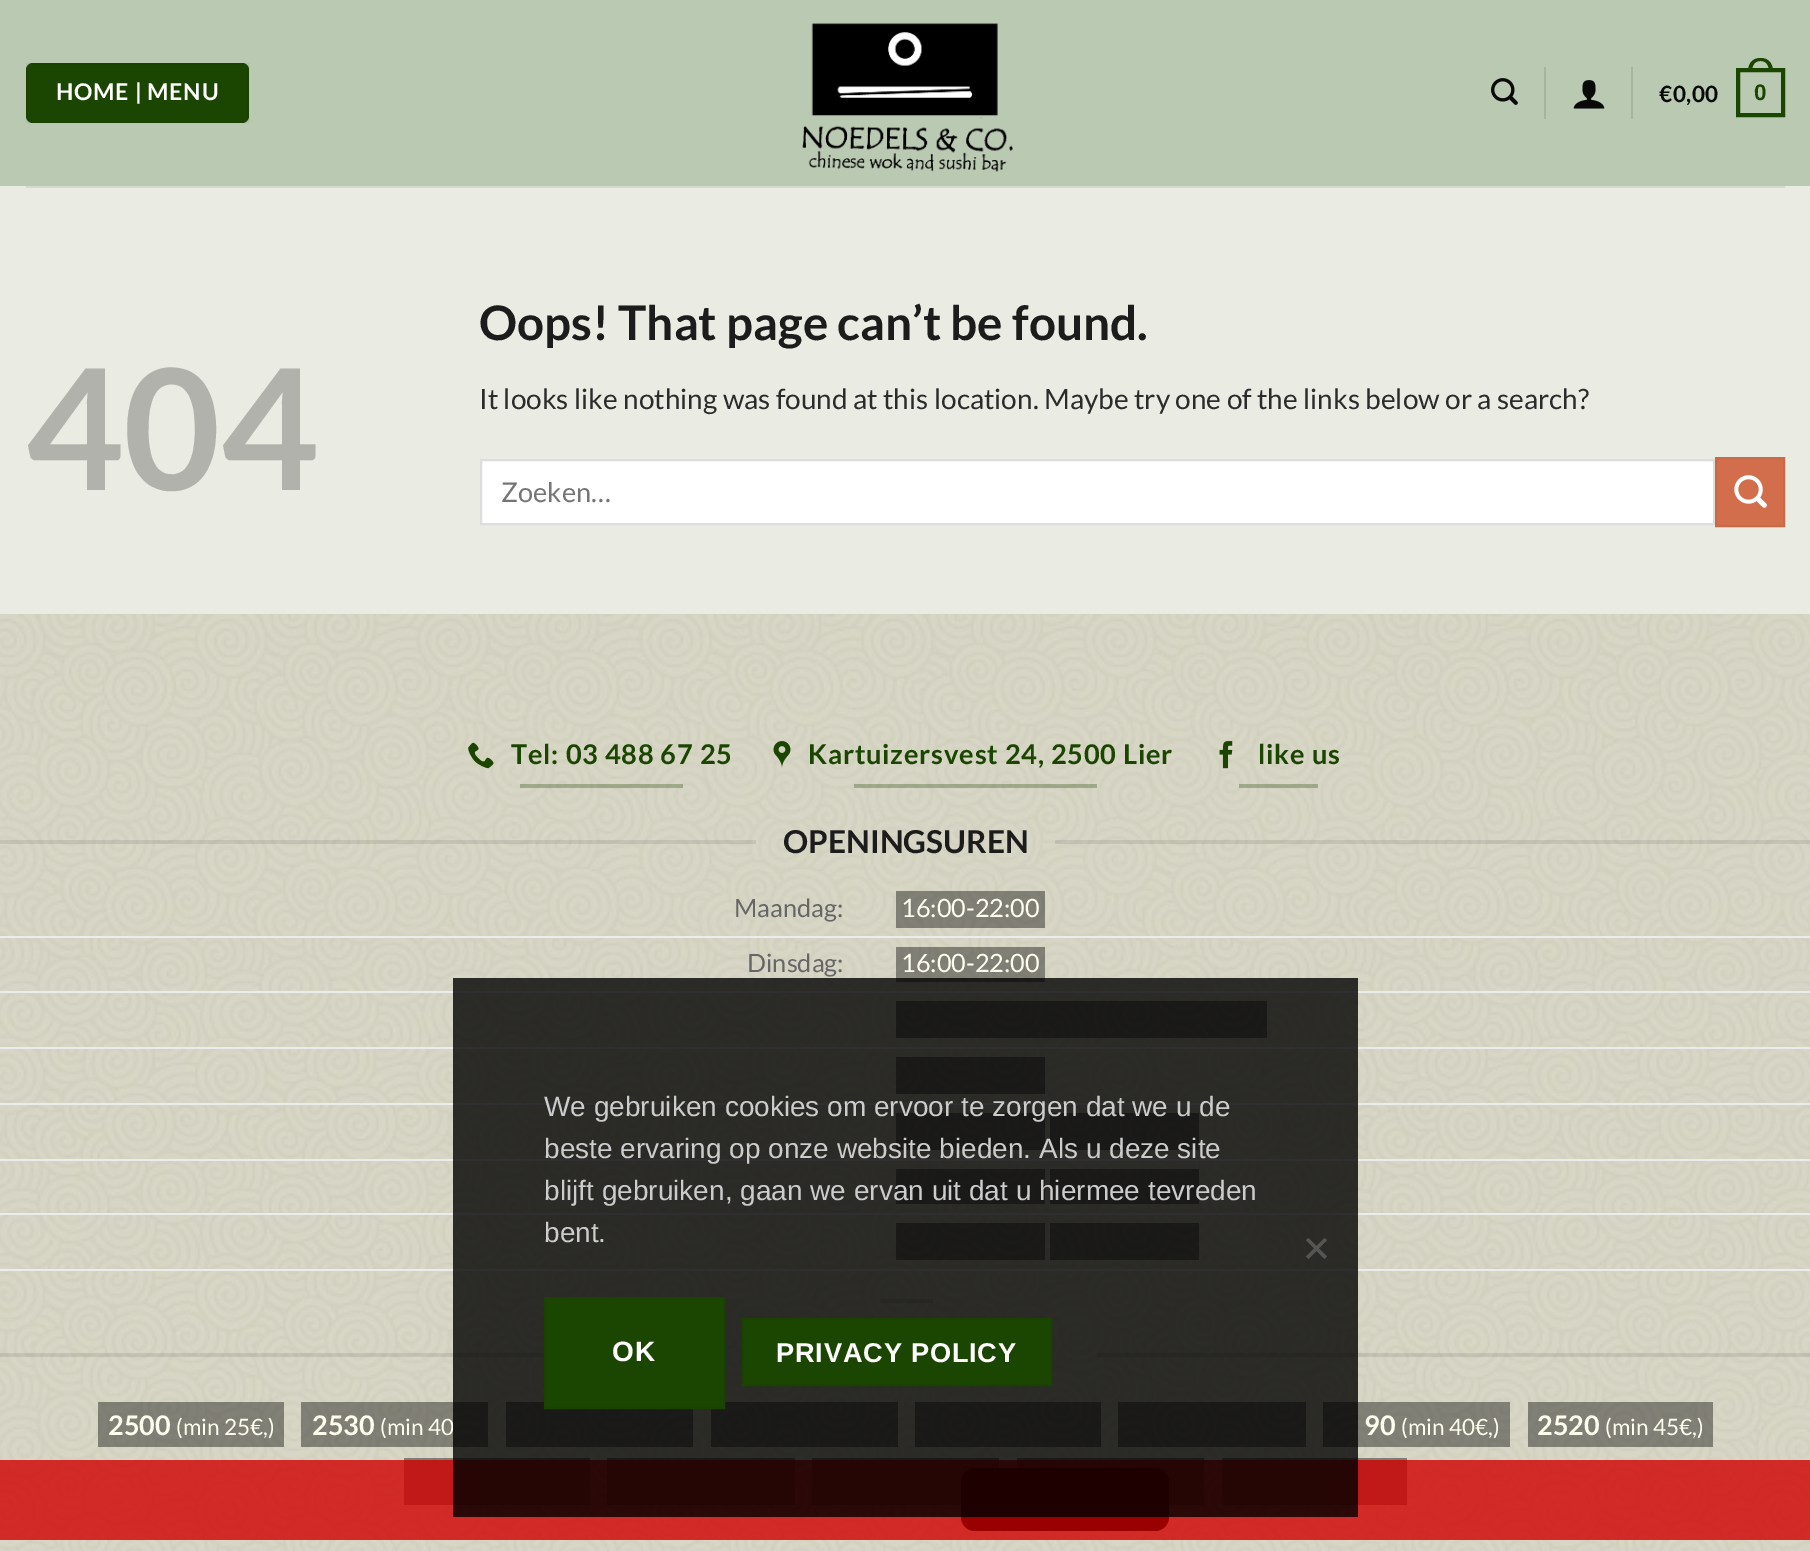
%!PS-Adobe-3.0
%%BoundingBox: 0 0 1810 1551
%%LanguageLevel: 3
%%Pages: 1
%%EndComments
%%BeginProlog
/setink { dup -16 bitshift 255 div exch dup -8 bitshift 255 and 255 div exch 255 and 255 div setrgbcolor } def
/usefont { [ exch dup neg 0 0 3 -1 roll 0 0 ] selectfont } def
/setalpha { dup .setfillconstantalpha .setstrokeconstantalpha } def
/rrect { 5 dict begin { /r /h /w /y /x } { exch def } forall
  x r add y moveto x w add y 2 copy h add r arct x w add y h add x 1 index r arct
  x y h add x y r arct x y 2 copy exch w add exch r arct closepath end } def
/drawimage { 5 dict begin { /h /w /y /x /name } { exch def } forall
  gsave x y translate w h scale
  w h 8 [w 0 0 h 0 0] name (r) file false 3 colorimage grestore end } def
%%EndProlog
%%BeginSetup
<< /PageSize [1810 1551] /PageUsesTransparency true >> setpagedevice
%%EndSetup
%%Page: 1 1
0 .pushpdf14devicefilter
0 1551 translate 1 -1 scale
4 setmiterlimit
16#EAECE3 setink
0 0 1810 1551 rectfill
16#CFD5C6 setink
0 614 1810 1 rectfill
16#BAC9B1 setink
0 0 1810 186 rectfill
16#1B4601 setink
26 63 223 60 7 rrect fill
0.05 setalpha
16#000000 setink
2 setlinewidth
27 64 221 58 rectstroke
/Lato-Bold 23 usefont
1 setalpha
16#FFFFFF setink
56 100 moveto 0.75 0 (HOME | MENU) ashow
(img1.raw) 802 23 211 149 drawimage
(img2.raw) 1491 78 27 27 drawimage
16#A7B59F setink
1544 67 2 52 rectfill
(img3.raw) 1573 80 32 29 drawimage
1631 67 2 52 rectfill
/Lato-Bold 22.5 usefont
16#0A0A0A setink
1659 102 moveto 0.5 0 (€0,00) ashow
16#1B4601 setink
4 setlinewidth
1738 70 45 45 rectstroke
1760.5 58 moveto 1769 58 1773 64 1773 72 curveto 1748 72 lineto 1748 64 1752 58 1760.5 58 curveto closepath 1760.5 61 moveto 1767 61 1769 66 1769 72 curveto 1752 72 lineto 1752 66 1754 61 1760.5 61 curveto closepath eofill
/LiberationSans-Bold 22.5 usefont
1754 100 moveto 0.5 0 (0) ashow
16#D7D9D1 setink
26 186 1759 2 rectfill
/Lato-Bold 168 usefont
16#B1B2AC setink
26 490 moveto (404) show
/Lato-Bold 47.6 usefont
16#1C1C1C setink
479 340 moveto (Oops! That page can’t be found.) show
/Lato-Regular 28 usefont
16#2B2B2B setink
479 409 moveto (It looks like nothing was found at this location. Maybe try one of the links below or a search?) show
16#FFFFFF setink
481 460 moveto 1714 460 lineto 1714 524 lineto 481 524 lineto closepath gsave fill grestore
16#DDDDDD setink
2 setlinewidth
stroke
/Lato-Regular 27.2 usefont
16#757575 setink
501 502 moveto (Zoeken…) show
16#D26E4B setink
1716 458 moveto 1784 458 lineto 1784 526 lineto 1716 526 lineto closepath gsave fill grestore
16#C86947 setink
stroke
(img4.raw) 1734 475 33 33 drawimage
(img5.raw) 0 614 1810 937 drawimage
(img6.raw) 468 742 26 27 drawimage
/Lato-Bold 27.2 usefont
16#1B4601 setink
511 764 moveto 0.8 0 (Tel: 03 488 67 25) ashow
0.3 setalpha
520 784 163 4 rectfill
1 setalpha
(img7.raw) 773 741 18 27 drawimage
808 764 moveto 0.8 0 (Kartuizersvest 24, 2500 Lier) ashow
0.3 setalpha
854 784 243 4 rectfill
1 setalpha
(img8.raw) 1219 741 14 28 drawimage
1258 764 moveto 0.8 0 (like us) ashow
0.3 setalpha
1239 784 79 4 rectfill
0.1 setalpha
16#1C1C1C setink
0 840 756 4 rectfill
/Lato-Bold 31.5 usefont
1 setalpha
783 853 moveto (OPENINGSUREN) show
0.1 setalpha
1055 840 755 4 rectfill
1 setalpha
16#ECECEC setink
0 936 1810 2 rectfill
/Lato-Regular 25.25 usefont
16#666666 setink
734 917 moveto (Maandag:) show
0.4 setalpha
16#000000 setink
896 891 149 37 rectfill
1 setalpha
16#FFFFF0 setink
901 917 moveto (16:00-22:00) show
16#ECECEC setink
0 991 1810 2 rectfill
16#666666 setink
747 972 moveto (Dinsdag:) show
0.4 setalpha
16#000000 setink
896 947 149 35 rectfill
1 setalpha
16#FFFFF0 setink
901 972 moveto (16:00-22:00) show
0.4 setalpha
[
    [896 1001 371 37 16#000000]
] { aload pop setink rectfill } forall
1 setalpha
[
    [0 1047 1810 2 16#ECECEC]
] { aload pop setink rectfill } forall
0.4 setalpha
[
    [896 1057 149 37 16#000000]
] { aload pop setink rectfill } forall
1 setalpha
[
    [0 1103 1810 2 16#ECECEC]
] { aload pop setink rectfill } forall
0.4 setalpha
[
    [896 1113 149 37 16#000000]
    [1050 1113 149 37 16#000000]
] { aload pop setink rectfill } forall
1 setalpha
[
    [0 1159 1810 2 16#ECECEC]
] { aload pop setink rectfill } forall
0.4 setalpha
[
    [896 1169 149 35 16#000000]
    [1050 1169 149 35 16#000000]
] { aload pop setink rectfill } forall
1 setalpha
[
    [0 1213 1810 2 16#ECECEC]
] { aload pop setink rectfill } forall
0.4 setalpha
[
    [896 1223 149 37 16#000000]
    [1050 1223 149 37 16#000000]
] { aload pop setink rectfill } forall
1 setalpha
[
    [0 1269 1810 2 16#ECECEC]
] { aload pop setink rectfill } forall
0.1 setalpha
[
    [880 1299 53 4 16#000000]
    [0 1353 544 4 16#1C1C1C]
    [1097 1353 713 4 16#1C1C1C]
] { aload pop setink rectfill } forall
0.4 setalpha
[
    [98 1402 186 45 16#000000]
] { aload pop setink rectfill } forall
/Lato-Bold 27 usefont
1 setalpha
16#FFFFF0 setink
108 1435 moveto (2500) show
/Lato-Regular 22.5 usefont
176 1435 moveto (\(min 25€,\)) show
0.4 setalpha
16#000000 setink
301 1402 187 45 rectfill
/Lato-Bold 27 usefont
1 setalpha
16#FFFFF0 setink
312 1435 moveto (2530) show
/Lato-Regular 22.5 usefont
380 1435 moveto (\(min 40) show
0.4 setalpha
[
    [506 1402 187 45 16#000000]
    [711 1402 187 45 16#000000]
    [915 1402 186 45 16#000000]
    [1118 1402 188 45 16#000000]
    [1323 1402 187 45 16#000000]
] { aload pop setink rectfill } forall
/Lato-Bold 27 usefont
1 setalpha
16#FFFFF0 setink
1364 1435 moveto (90) show
/Lato-Regular 22.5 usefont
1401 1435 moveto (\(min 40€,\)) show
0.4 setalpha
16#000000 setink
1528 1402 185 45 rectfill
/Lato-Bold 27 usefont
1 setalpha
16#FFFFF0 setink
1537 1435 moveto (2520) show
/Lato-Regular 22.5 usefont
1605 1435 moveto (\(min 45€,\)) show
0.4 setalpha
[
    [404 1458 186 47 16#000000]
    [607 1458 188 47 16#000000]
    [812 1458 187 47 16#000000]
    [1017 1458 187 47 16#000000]
    [1222 1458 185 47 16#000000]
] { aload pop setink rectfill } forall
0.8 setalpha
[
    [0 1460 1810 80 16#D00000]
] { aload pop setink rectfill } forall
1 setalpha
16#990000 setink
961 1468 208 63 14 rrect fill
0.8 setalpha
16#000000 setink
453 978 905 539 rectfill
/LiberationSans-Regular 28 usefont
1 setalpha
16#CCCCCC setink
[
    [(We gebruiken cookies om ervoor te zorgen dat we u de) 544 1116]
    [(beste ervaring op onze website bieden. Als u deze site) 544 1158]
    [(blijft gebruiken, gaan we ervan uit dat u hiermee tevreden) 544 1200]
    [(bent.) 544 1242]
] { aload pop moveto show } forall
16#555553 setink
1324.5 1238 moveto 1327 1240 lineto 1308.5 1259 lineto 1306 1256.5 lineto closepath fill
1306 1240 moveto 1308.5 1238 lineto 1327 1256.5 lineto 1324.5 1259 lineto closepath fill
16#1B4601 setink
545 1298 moveto 724 1298 lineto 724 1408 lineto 545 1408 lineto closepath gsave fill grestore
16#1A4301 setink
stroke
/LiberationSans-Bold 28 usefont
16#FFFFFF setink
612 1361 moveto 1 0 (OK) ashow
16#1B4601 setink
743 1319 moveto 1051 1319 lineto 1051 1385 lineto 743 1385 lineto closepath gsave fill grestore
16#1A4301 setink
stroke
/LiberationSans-Bold 27.2 usefont
16#FFFFFF setink
776 1362 moveto 0.8 0 (PRIVACY POLICY) ashow
.poppdf14devicefilter showpage
%%EOF
